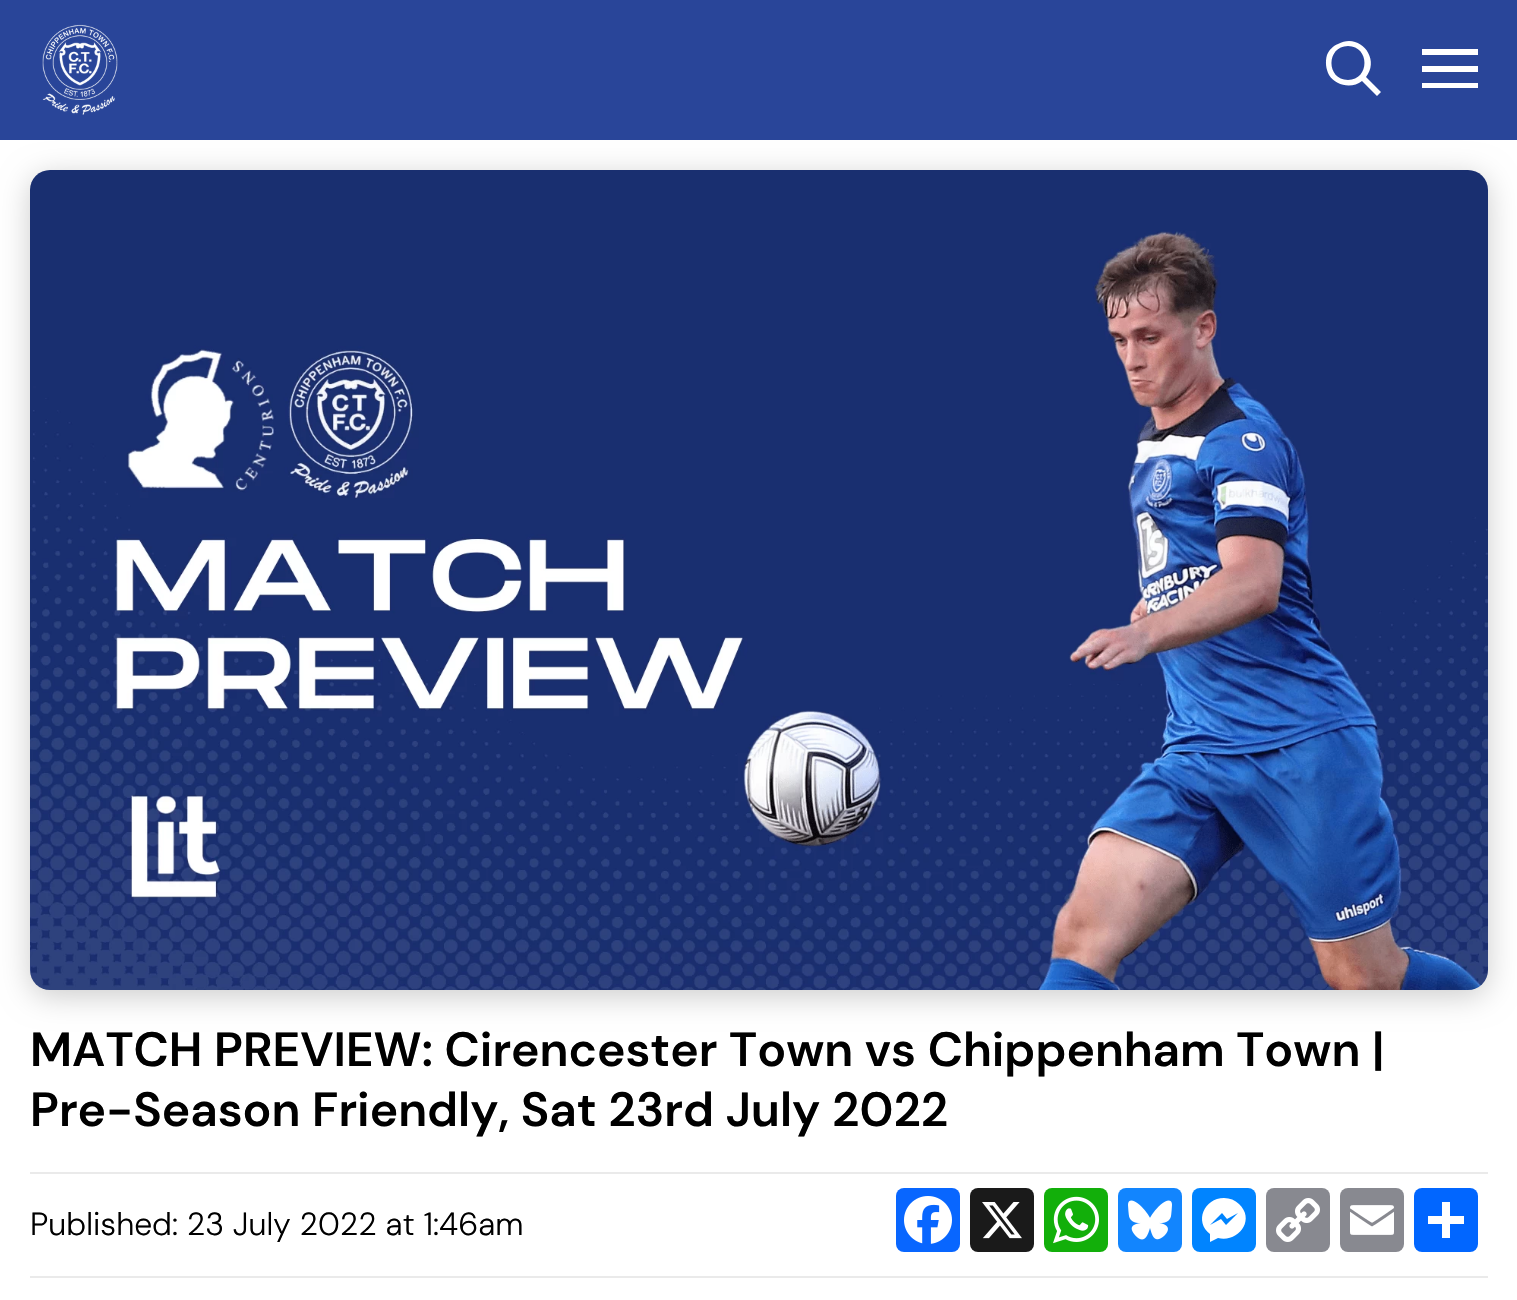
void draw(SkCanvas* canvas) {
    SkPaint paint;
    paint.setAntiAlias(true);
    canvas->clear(0xFFFFFFFF);
    paint.setColor(0x33000000);
    paint.setMaskFilter(SkMaskFilter::MakeBlur(kNormal_SkBlurStyle, 15));
    canvas->drawRoundRect(SkRect::MakeXYWH(30, 176, 1458, 820), 20, 20, paint);
    paint.setMaskFilter(nullptr);
    paint.setColor(0xFF294599);
    canvas->drawRect(SkRect::MakeXYWH(0, 0, 1517, 140), paint);
    canvas->drawImageRect(SkImages::DeferredFromEncodedData(SkData::MakeFromFileName("img1.png")), SkRect::MakeXYWH(42, 24, 76, 91), SkSamplingOptions());
    paint.setColor(0xFFFFFFFF);
    canvas->drawPath(SkPathBuilder().moveTo(1362, 81).cubicTo(1352, 89, 1336, 86, 1329, 75).cubicTo(1326, 69, 1325, 62, 1327, 55).cubicTo(1329, 50, 1333, 46, 1338, 44).cubicTo(1359, 32, 1381, 58, 1366, 77).lineTo(1381, 92).lineTo(1377, 96).close().moveTo(1348, 80).cubicTo(1370, 80, 1370, 46, 1348, 46).cubicTo(1326, 46, 1326, 80, 1348, 80).close().detach(), paint);
    canvas->drawPath(SkPathBuilder().moveTo(1422, 49).lineTo(1478, 49).lineTo(1478, 55).lineTo(1422, 55).close().moveTo(1422, 66).lineTo(1478, 66).lineTo(1478, 72).lineTo(1422, 72).close().moveTo(1422, 83).lineTo(1478, 83).lineTo(1478, 88).lineTo(1422, 88).close().detach(), paint);
    canvas->drawImageRect(SkImages::DeferredFromEncodedData(SkData::MakeFromFileName("img2.png")), SkRect::MakeXYWH(30, 170, 1458, 820), SkSamplingOptions());
    SkFont font1(fontMgr->matchFamilyStyle("DM Sans", SkFontStyle(600, SkFontStyle::kNormal_Width, SkFontStyle::kUpright_Slant)), 48);
    font1.setSubpixel(true);
    paint.setColor(0xFF000000);
    canvas->drawString("MATCH PREVIEW: Cirencester Town vs Chippenham Town |", 30, 1066, font1, paint);
    canvas->drawString("Pre-Season Friendly, Sat 23rd July 2022", 30, 1126, font1, paint);
    paint.setColor(0xFFEAEAEA);
    canvas->drawRect(SkRect::MakeXYWH(30, 1172, 1458, 2), paint);
    canvas->drawRect(SkRect::MakeXYWH(30, 1276, 1458, 2), paint);
    SkFont font2(fontMgr->matchFamilyStyle("DM Sans", SkFontStyle(300, SkFontStyle::kNormal_Width, SkFontStyle::kUpright_Slant)), 32);
    font2.setSubpixel(true);
    paint.setColor(0xFF000000);
    canvas->drawString("Published: 23 July 2022 at 1:46am", 30, 1235, font2, paint);
    paint.setColor(0xFF0866FF);
    canvas->drawRoundRect(SkRect::MakeXYWH(896, 1188, 64, 64), 8, 8, paint);
    canvas->drawImageRect(SkImages::DeferredFromEncodedData(SkData::MakeFromFileName("img3.png")), SkRect::MakeXYWH(904, 1196, 48, 48), SkSamplingOptions());
    paint.setColor(0xFF1A1A1A);
    canvas->drawRoundRect(SkRect::MakeXYWH(970, 1188, 64, 64), 8, 8, paint);
    canvas->drawImageRect(SkImages::DeferredFromEncodedData(SkData::MakeFromFileName("img4.png")), SkRect::MakeXYWH(982, 1202, 40, 37), SkSamplingOptions());
    paint.setColor(0xFF12AF0A);
    canvas->drawRoundRect(SkRect::MakeXYWH(1044, 1188, 64, 64), 8, 8, paint);
    canvas->drawImageRect(SkImages::DeferredFromEncodedData(SkData::MakeFromFileName("img5.png")), SkRect::MakeXYWH(1053, 1196, 46, 48), SkSamplingOptions());
    paint.setColor(0xFF1285FE);
    canvas->drawRoundRect(SkRect::MakeXYWH(1118, 1188, 64, 64), 8, 8, paint);
    canvas->drawImageRect(SkImages::DeferredFromEncodedData(SkData::MakeFromFileName("img6.png")), SkRect::MakeXYWH(1128, 1200, 44, 40), SkSamplingOptions());
    paint.setColor(0xFF0084FF);
    canvas->drawRoundRect(SkRect::MakeXYWH(1192, 1188, 64, 64), 8, 8, paint);
    paint.setColor(0xFFFFFFFF);
    canvas->drawPath(SkPathBuilder().moveTo(1224, 1198).cubicTo(1204, 1198, 1194, 1222, 1210, 1234).lineTo(1210, 1242).lineTo(1218, 1238).cubicTo(1238, 1243, 1256, 1220, 1239, 1204).cubicTo(1235, 1200, 1230, 1198, 1224, 1198).moveTo(1226, 1225).lineTo(1221, 1219).lineTo(1210, 1225).lineTo(1222, 1213).lineTo(1227, 1219).lineTo(1238, 1213).close().detach(), paint);
    paint.setColor(0xFF888990);
    canvas->drawRoundRect(SkRect::MakeXYWH(1266, 1188, 64, 64), 8, 8, paint);
    canvas->drawImageRect(SkImages::DeferredFromEncodedData(SkData::MakeFromFileName("img7.png")), SkRect::MakeXYWH(1276, 1198, 44, 44), SkSamplingOptions());
    canvas->drawRoundRect(SkRect::MakeXYWH(1340, 1188, 64, 64), 8, 8, paint);
    canvas->drawImageRect(SkImages::DeferredFromEncodedData(SkData::MakeFromFileName("img8.png")), SkRect::MakeXYWH(1350, 1205, 44, 30), SkSamplingOptions());
    paint.setColor(0xFF0166FF);
    canvas->drawRoundRect(SkRect::MakeXYWH(1414, 1188, 64, 64), 8, 8, paint);
    paint.setColor(0xFFFFFFFF);
    canvas->drawRect(SkRect::MakeXYWH(1442, 1202, 8, 36), paint);
    canvas->drawRect(SkRect::MakeXYWH(1428, 1216, 36, 8), paint);
}
